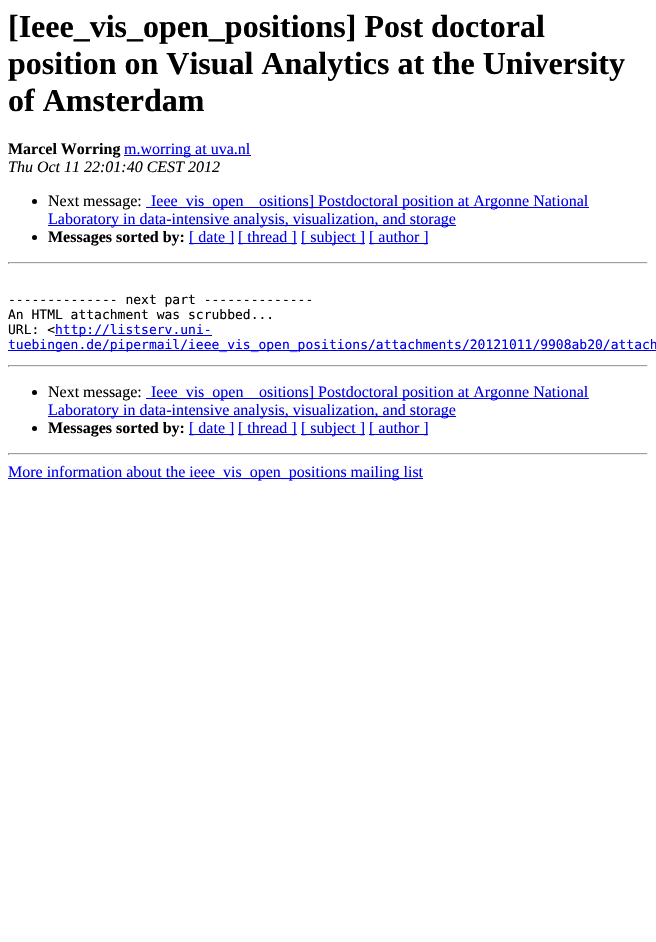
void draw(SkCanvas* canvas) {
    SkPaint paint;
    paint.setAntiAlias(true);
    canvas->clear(0xFFFFFFFF);
    SkFont font1(fontMgr->matchFamilyStyle("Liberation Serif", SkFontStyle::Bold()), 32);
    font1.setSubpixel(true);
    paint.setColor(0xFF000000);
    canvas->drawString("[Ieee_vis_open_positions] Post doctoral", 8, 37, font1, paint);
    canvas->drawString("position on Visual Analytics at the University", 8, 74, font1, paint);
    canvas->drawString("of Amsterdam", 8, 111, font1, paint);
    SkFont font2(fontMgr->matchFamilyStyle("Liberation Serif", SkFontStyle::Bold()), 16);
    font2.setSubpixel(true);
    canvas->drawString("Marcel Worring", 8, 154, font2, paint);
    paint.setColor(0xFF0000EE);
    canvas->drawRect(SkRect::MakeXYWH(124, 155, 127, 1), paint);
    SkFont font3(fontMgr->matchFamilyStyle("Liberation Serif", SkFontStyle::Normal()), 16);
    font3.setSubpixel(true);
    canvas->drawString("m.worring at uva.nl", 124, 154, font3, paint);
    SkFont font4(fontMgr->matchFamilyStyle("Liberation Serif", SkFontStyle::Italic()), 16);
    font4.setSubpixel(true);
    paint.setColor(0xFF000000);
    canvas->drawString("Thu Oct 11 22:01:40 CEST 2012", 8, 172, font4, paint);
    canvas->drawCircle(34.5f, 201.5f, 2.5f, paint);
    canvas->drawString("Next message:", 48, 206, font3, paint);
    paint.setColor(0xFF0000EE);
    canvas->drawRect(SkRect::MakeXYWH(146, 207, 443, 1), paint);
    canvas->drawString("Ieee_vis_open", 151, 206, font3, paint);
    canvas->drawString("ositions] Postdoctoral position at Argonne National", 259, 206, font3, paint);
    canvas->drawRect(SkRect::MakeXYWH(48, 225, 408, 1), paint);
    canvas->drawString("Laboratory in data-intensive analysis, visualization, and storage", 48, 224, font3, paint);
    paint.setColor(0xFF000000);
    canvas->drawCircle(34.5f, 237.5f, 2.5f, paint);
    canvas->drawString("Messages sorted by:", 48, 242, font2, paint);
    paint.setColor(0xFF0000EE);
    canvas->drawRect(SkRect::MakeXYWH(189, 243, 45, 1), paint);
    canvas->drawString("[ date ]", 189, 242, font3, paint);
    canvas->drawRect(SkRect::MakeXYWH(238, 243, 59, 1), paint);
    canvas->drawString("[ thread ]", 238, 242, font3, paint);
    canvas->drawRect(SkRect::MakeXYWH(301, 243, 64, 1), paint);
    canvas->drawString("[ subject ]", 301, 242, font3, paint);
    canvas->drawRect(SkRect::MakeXYWH(369, 243, 59, 1), paint);
    canvas->drawString("[ author ]", 369, 242, font3, paint);
    paint.setColor(0xFF9F9F9F);
    canvas->drawRect(SkRect::MakeXYWH(8, 262, 640, 1), paint);
    paint.setColor(0xFFEEEEEE);
    canvas->drawRect(SkRect::MakeXYWH(647, 262, 1, 2), paint);
    canvas->drawRect(SkRect::MakeXYWH(8, 263, 640, 1), paint);
    paint.setColor(0xFF9F9F9F);
    canvas->drawRect(SkRect::MakeXYWH(8, 262, 1, 2), paint);
    SkFont font5(fontMgr->matchFamilyStyle("DejaVu Sans Mono", SkFontStyle::Normal()), 13);
    font5.setSubpixel(true);
    paint.setColor(0xFF000000);
    canvas->drawString("-------------- next part --------------", 8, 304, font5, paint);
    canvas->drawString("An HTML attachment was scrubbed...", 8, 319, font5, paint);
    canvas->drawString("URL: <", 8, 334, font5, paint);
    paint.setColor(0xFF0000EE);
    canvas->drawRect(SkRect::MakeXYWH(55, 335, 157, 1), paint);
    canvas->drawString("http://listserv.uni-", 55, 334, font5, paint);
    canvas->drawRect(SkRect::MakeXYWH(8, 350, 648, 1), paint);
    canvas->drawString("tuebingen.de/pipermail/ieee_vis_open_positions/attachments/20121011/9908ab20/attach", 8, 349, font5, paint);
    paint.setColor(0xFF9F9F9F);
    canvas->drawRect(SkRect::MakeXYWH(8, 365, 640, 1), paint);
    paint.setColor(0xFFEEEEEE);
    canvas->drawRect(SkRect::MakeXYWH(647, 365, 1, 2), paint);
    canvas->drawRect(SkRect::MakeXYWH(8, 366, 640, 1), paint);
    paint.setColor(0xFF9F9F9F);
    canvas->drawRect(SkRect::MakeXYWH(8, 365, 1, 2), paint);
    paint.setColor(0xFF000000);
    canvas->drawCircle(34.5f, 392.5f, 2.5f, paint);
    canvas->drawString("Next message:", 48, 397, font3, paint);
    paint.setColor(0xFF0000EE);
    canvas->drawRect(SkRect::MakeXYWH(146, 398, 443, 1), paint);
    canvas->drawString("Ieee_vis_open", 151, 397, font3, paint);
    canvas->drawString("ositions] Postdoctoral position at Argonne National", 259, 397, font3, paint);
    canvas->drawRect(SkRect::MakeXYWH(48, 416, 408, 1), paint);
    canvas->drawString("Laboratory in data-intensive analysis, visualization, and storage", 48, 415, font3, paint);
    paint.setColor(0xFF000000);
    canvas->drawCircle(34.5f, 428.5f, 2.5f, paint);
    canvas->drawString("Messages sorted by:", 48, 433, font2, paint);
    paint.setColor(0xFF0000EE);
    canvas->drawRect(SkRect::MakeXYWH(189, 434, 45, 1), paint);
    canvas->drawString("[ date ]", 189, 433, font3, paint);
    canvas->drawRect(SkRect::MakeXYWH(238, 434, 59, 1), paint);
    canvas->drawString("[ thread ]", 238, 433, font3, paint);
    canvas->drawRect(SkRect::MakeXYWH(301, 434, 64, 1), paint);
    canvas->drawString("[ subject ]", 301, 433, font3, paint);
    canvas->drawRect(SkRect::MakeXYWH(369, 434, 59, 1), paint);
    canvas->drawString("[ author ]", 369, 433, font3, paint);
    paint.setColor(0xFF9F9F9F);
    canvas->drawRect(SkRect::MakeXYWH(8, 453, 640, 1), paint);
    paint.setColor(0xFFEEEEEE);
    canvas->drawRect(SkRect::MakeXYWH(647, 453, 1, 2), paint);
    canvas->drawRect(SkRect::MakeXYWH(8, 454, 640, 1), paint);
    paint.setColor(0xFF9F9F9F);
    canvas->drawRect(SkRect::MakeXYWH(8, 453, 1, 2), paint);
    paint.setColor(0xFF0000EE);
    canvas->drawRect(SkRect::MakeXYWH(8, 478, 415, 1), paint);
    canvas->drawString("More information about the ieee_vis_open_positions mailing list", 8, 477, font3, paint);
}
